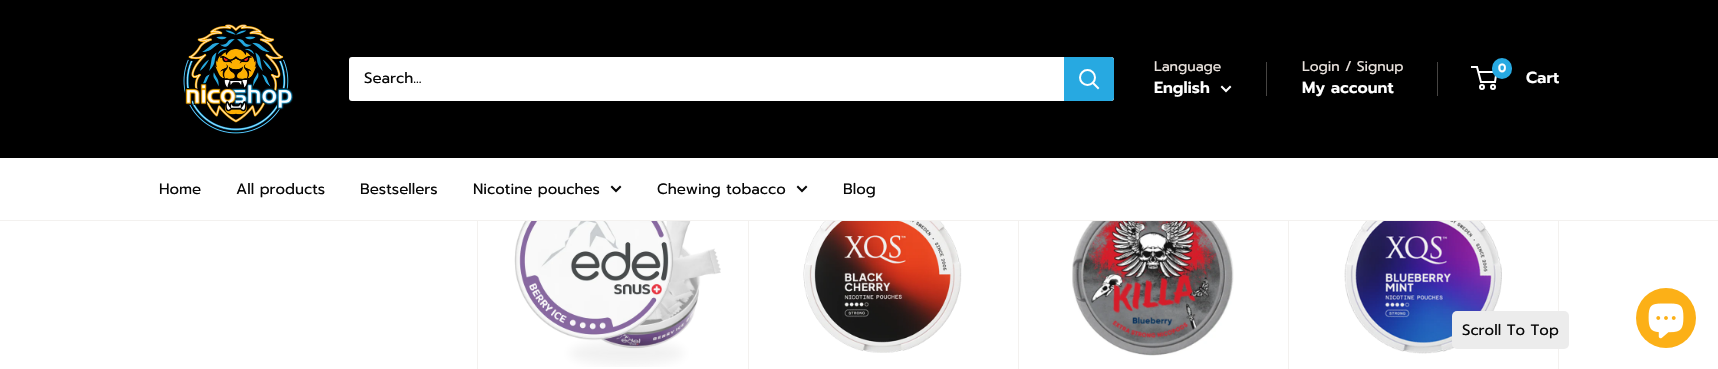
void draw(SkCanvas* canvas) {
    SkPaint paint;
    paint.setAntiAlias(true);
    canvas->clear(0xFFFFFFFF);
    paint.setStyle(SkPaint::kStroke_Style);
    paint.setStrokeWidth(1);
    paint.setColor(0xFFF3F1EF);
    canvas->drawRect(SkRect::MakeXYWH(477.5f, -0.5f, 1081, 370), paint);
    paint.setStyle(SkPaint::kFill_Style);
    paint.setColor(0xFF000000);
    canvas->drawRect(SkRect::MakeXYWH(0, 0, 1718, 158), paint);
    canvas->drawImageRect(SkImages::DeferredFromEncodedData(SkData::MakeFromFileName("img1.png")), SkRect::MakeXYWH(183, 24, 111, 110), SkSamplingOptions());
    paint.setColor(0xFFFFFFFF);
    canvas->drawRoundRect(SkRect::MakeXYWH(349, 57, 765, 44), 3, 3, paint);
    SkFont font1(fontMgr->matchFamilyStyle("Prompt", SkFontStyle::Normal()), 15);
    font1.setSubpixel(true);
    paint.setColor(0xFF090909);
    canvas->drawString("Search...", 364, 83, font1, paint);
    paint.setColor(0xFF27A9E1);
    canvas->drawPath(SkPathBuilder().moveTo(1064, 57).lineTo(1111, 57).cubicTo(1112.5f, 57, 1114, 58.5f, 1114, 60).lineTo(1114, 98).cubicTo(1114, 99.5f, 1112.5f, 101, 1111, 101).lineTo(1064, 101).close().detach(), paint);
    paint.setStyle(SkPaint::kStroke_Style);
    paint.setStrokeWidth(2);
    paint.setStrokeCap(SkPaint::kSquare_Cap);
    paint.setColor(0xFFFFFFFF);
    canvas->drawPath(SkPathBuilder().moveTo(1098, 88).lineTo(1093, 83).detach(), paint);
    paint.setStrokeCap(SkPaint::kButt_Cap);
    canvas->drawCircle(1087.5f, 77.5f, 7.5f, paint);
    SkFont font2(fontMgr->matchFamilyStyle("Prompt", SkFontStyle::Normal()), 14);
    font2.setSubpixel(true);
    paint.setStyle(SkPaint::kFill_Style);
    paint.setColor(0xFFE9E2DD);
    canvas->drawString("Language", 1154, 71, font2, paint);
    SkFont font3(fontMgr->matchFamilyStyle("Prompt", SkFontStyle(600, SkFontStyle::kNormal_Width, SkFontStyle::kUpright_Slant)), 16);
    font3.setSubpixel(true);
    paint.setColor(0xFFFFFFFF);
    canvas->drawString("English", 1154, 93, font3, paint);
    paint.setStyle(SkPaint::kStroke_Style);
    paint.setStrokeCap(SkPaint::kSquare_Cap);
    canvas->drawPath(SkPathBuilder().moveTo(1230, 87).lineTo(1226, 91).lineTo(1222, 87).detach(), paint);
    paint.setStyle(SkPaint::kFill_Style);
    paint.setColor(0xFF464442);
    canvas->drawRect(SkRect::MakeXYWH(1266, 62, 1, 34), paint);
    paint.setColor(0xFFE9E2DD);
    canvas->drawString("Login / Signup", 1302, 71, font2, paint);
    paint.setColor(0xFF464442);
    canvas->drawRect(SkRect::MakeXYWH(1437, 62, 1, 34), paint);
    paint.setColor(0xFFFFFFFF);
    canvas->drawString("My account", 1302, 93, font3, paint);
    paint.setStyle(SkPaint::kStroke_Style);
    paint.setStrokeCap(SkPaint::kButt_Cap);
    canvas->drawCircle(1482, 87, 2, paint);
    canvas->drawCircle(1493, 87, 2, paint);
    canvas->drawPath(SkPathBuilder().moveTo(1478.5f, 72).lineTo(1496.5f, 72).lineTo(1495, 82).lineTo(1481, 82).lineTo(1477, 67).lineTo(1471, 67).detach(), paint);
    paint.setStyle(SkPaint::kFill_Style);
    paint.setColor(0xFF27A9E1);
    canvas->drawRoundRect(SkRect::MakeXYWH(1492, 58, 20, 21), 10, 10, paint);
    SkFont font4(fontMgr->matchFamilyStyle("Prompt", SkFontStyle(600, SkFontStyle::kNormal_Width, SkFontStyle::kUpright_Slant)), 12);
    font4.setSubpixel(true);
    paint.setColor(0xFFFFFFFF);
    canvas->drawString("0", 1498, 72, font4, paint);
    canvas->drawString("Cart", 1526, 83, font3, paint);
    canvas->drawRect(SkRect::MakeXYWH(477, 158, 1082, 62), paint);
    paint.setColor(0xFFF3F1EF);
    canvas->drawRect(SkRect::MakeXYWH(0, 220, 1718, 1), paint);
    paint.setColor(0xFF090909);
    canvas->drawString("Home", 159, 194, font1, paint);
    canvas->drawString("All products", 236, 194, font1, paint);
    canvas->drawString("Bestsellers", 360, 194, font1, paint);
    canvas->drawString("Nicotine pouches", 473, 194, font1, paint);
    paint.setStyle(SkPaint::kStroke_Style);
    paint.setStrokeCap(SkPaint::kSquare_Cap);
    canvas->drawPath(SkPathBuilder().moveTo(620, 187).lineTo(616, 191).lineTo(612, 187).detach(), paint);
    paint.setStyle(SkPaint::kFill_Style);
    canvas->drawString("Chewing tobacco", 657, 194, font1, paint);
    paint.setStyle(SkPaint::kStroke_Style);
    canvas->drawPath(SkPathBuilder().moveTo(806, 187).lineTo(802, 191).lineTo(798, 187).detach(), paint);
    paint.setStyle(SkPaint::kFill_Style);
    canvas->drawString("Blog", 843, 194, font1, paint);
    canvas->drawImageRect(SkImages::DeferredFromEncodedData(SkData::MakeFromFileName("img2.png")), SkRect::MakeXYWH(514, 221, 207, 146), SkSamplingOptions());
    paint.setColor(0xFFF3F1EF);
    canvas->drawRect(SkRect::MakeXYWH(748, 221, 1, 148), paint);
    canvas->drawImageRect(SkImages::DeferredFromEncodedData(SkData::MakeFromFileName("img3.png")), SkRect::MakeXYWH(803, 221, 159, 132), SkSamplingOptions());
    canvas->drawRect(SkRect::MakeXYWH(1018, 221, 1, 148), paint);
    canvas->drawImageRect(SkImages::DeferredFromEncodedData(SkData::MakeFromFileName("img4.png")), SkRect::MakeXYWH(1072, 221, 162, 135), SkSamplingOptions());
    canvas->drawRect(SkRect::MakeXYWH(1288, 221, 1, 148), paint);
    canvas->drawImageRect(SkImages::DeferredFromEncodedData(SkData::MakeFromFileName("img5.png")), SkRect::MakeXYWH(1344, 221, 158, 133), SkSamplingOptions());
    paint.setColor(0xFFECECEC);
    canvas->drawRoundRect(SkRect::MakeXYWH(1452, 311, 117, 38), 5, 5, paint);
    paint.setColor(0xFF090909);
    canvas->drawString("Scroll To Top", 1462, 335, font1, paint);
    paint.setColor(0xFFFCB017);
    canvas->drawCircle(1666, 318, 30, paint);
    canvas->drawImageRect(SkImages::DeferredFromEncodedData(SkData::MakeFromFileName("img6.png")), SkRect::MakeXYWH(1648, 303, 36, 36), SkSamplingOptions());
}
